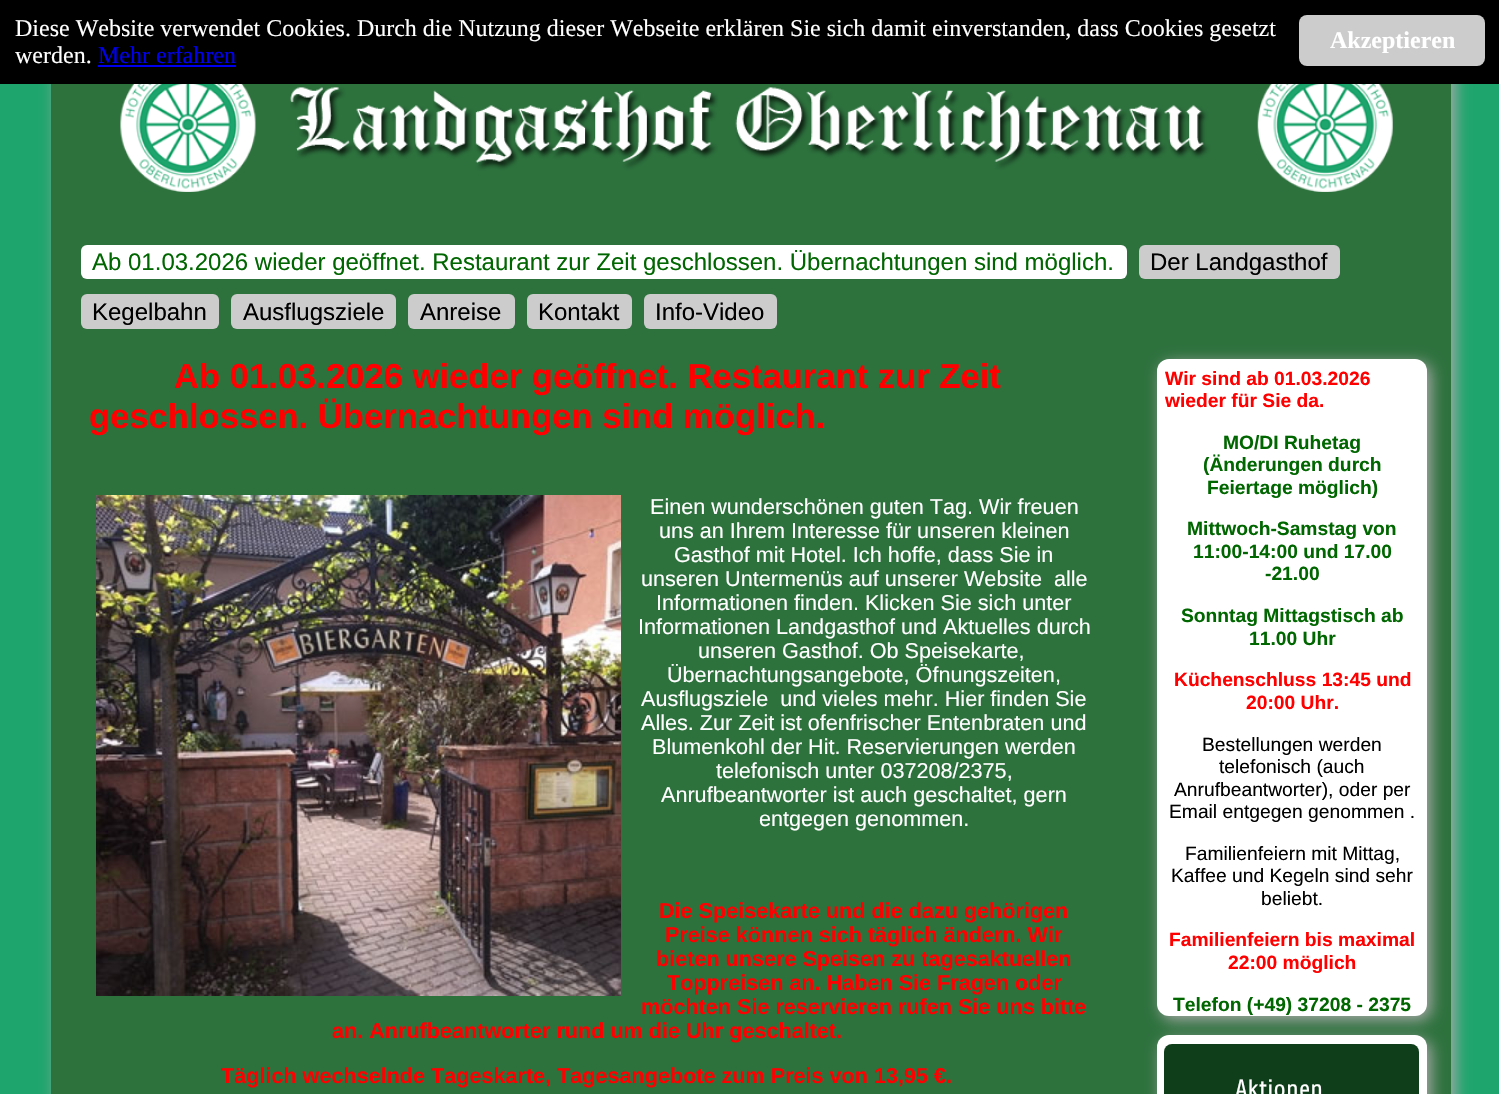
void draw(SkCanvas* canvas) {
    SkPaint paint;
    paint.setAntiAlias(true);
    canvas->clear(0xFF1EA56D);
    paint.setColor(0xFFAAAAAA);
    paint.setMaskFilter(SkMaskFilter::MakeBlur(kNormal_SkBlurStyle, 7.5f));
    canvas->drawRoundRect(SkRect::MakeXYWH(56, 20, 1399, 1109), 12, 12, paint);
    paint.setMaskFilter(nullptr);
    paint.setColor(0xFF000000);
    canvas->drawRect(SkRect::MakeXYWH(0, 0, 1499, 84), paint);
    SkFont font1(fontMgr->matchFamilyStyle("Liberation Serif", SkFontStyle::Normal()), 24);
    font1.setSubpixel(true);
    paint.setColor(0xFFFFFFFF);
    canvas->drawString("Diese Website verwendet Cookies. Durch die Nutzung dieser Webseite erklären Sie sich damit einverstanden, dass Cookies gesetzt", 15, 36, font1, paint);
    canvas->drawString("werden.", 15, 63, font1, paint);
    paint.setColor(0xFF0000EE);
    canvas->drawString("Mehr erfahren", 98, 63, font1, paint);
    canvas->drawRect(SkRect::MakeXYWH(98, 65, 138, 2), paint);
    paint.setColor(0xFFCCCCCC);
    canvas->drawRoundRect(SkRect::MakeXYWH(1299, 15, 186, 51), 8, 8, paint);
    SkFont font2(fontMgr->matchFamilyStyle("Liberation Serif", SkFontStyle::Bold()), 24);
    font2.setSubpixel(true);
    paint.setColor(0xFFFFFFFF);
    canvas->drawString("Akzeptieren", 1330, 48, font2, paint);
    paint.setColor(0xFF2D713D);
    canvas->drawRect(SkRect::MakeXYWH(51, 84, 1400, 1010), paint);
    canvas->drawImageRect(SkImages::DeferredFromEncodedData(SkData::MakeFromFileName("img1.png")), SkRect::MakeXYWH(120, 84, 1273, 108), SkSamplingOptions());
    paint.setColor(0xFFFFFFFF);
    canvas->drawRoundRect(SkRect::MakeXYWH(81, 245, 1046, 34), 6, 6, paint);
    SkFont font3(fontMgr->matchFamilyStyle("Liberation Sans", SkFontStyle::Normal()), 24);
    font3.setSubpixel(true);
    paint.setColor(0xFF006600);
    canvas->drawString("Ab 01.03.2026 wieder geöffnet. Restaurant zur Zeit geschlossen. Übernachtungen sind möglich.", 92, 270, font3, paint);
    paint.setColor(0xFFCCCCCC);
    canvas->drawRoundRect(SkRect::MakeXYWH(1139, 245, 201, 34), 6, 6, paint);
    paint.setColor(0xFF000000);
    canvas->drawString("Der Landgasthof", 1150, 270, font3, paint);
    paint.setColor(0xFFCCCCCC);
    canvas->drawRoundRect(SkRect::MakeXYWH(81, 294, 138, 35), 6, 6, paint);
    paint.setColor(0xFF000000);
    canvas->drawString("Kegelbahn", 92, 320, font3, paint);
    paint.setColor(0xFFCCCCCC);
    canvas->drawRoundRect(SkRect::MakeXYWH(231, 294, 165, 35), 6, 6, paint);
    paint.setColor(0xFF000000);
    canvas->drawString("Ausflugsziele", 243, 320, font3, paint);
    paint.setColor(0xFFCCCCCC);
    canvas->drawRoundRect(SkRect::MakeXYWH(408, 294, 107, 35), 6, 6, paint);
    paint.setColor(0xFF000000);
    canvas->drawString("Anreise", 420, 320, font3, paint);
    paint.setColor(0xFFCCCCCC);
    canvas->drawRoundRect(SkRect::MakeXYWH(527, 294, 105, 35), 6, 6, paint);
    paint.setColor(0xFF000000);
    canvas->drawString("Kontakt", 538, 320, font3, paint);
    paint.setColor(0xFFCCCCCC);
    canvas->drawRoundRect(SkRect::MakeXYWH(644, 294, 133, 35), 6, 6, paint);
    paint.setColor(0xFF000000);
    canvas->drawString("Info-Video", 655, 320, font3, paint);
    SkFont font4(fontMgr->matchFamilyStyle("Liberation Sans", SkFontStyle::Bold()), 34.6f);
    font4.setSubpixel(true);
    paint.setColor(0xFFFF0000);
    canvas->drawString("Ab 01.03.2026 wieder geöffnet. Restaurant zur Zeit", 174, 388, font4, paint);
    canvas->drawString("geschlossen. Übernachtungen sind möglich.", 89, 428, font4, paint);
    canvas->drawImageRect(SkImages::DeferredFromEncodedData(SkData::MakeFromFileName("img2.png")), SkRect::MakeXYWH(96, 495, 525, 501), SkSamplingOptions());
    SkFont font5(fontMgr->matchFamilyStyle("Liberation Sans", SkFontStyle::Normal()), 21.6f);
    font5.setSubpixel(true);
    paint.setColor(0xFFFFFFFF);
    canvas->drawString("Einen wunderschönen guten Tag. Wir freuen", 650, 514, font5, paint);
    canvas->drawString("uns an Ihrem Interesse für unseren kleinen", 659, 538, font5, paint);
    canvas->drawString("Gasthof mit Hotel. Ich hoffe, dass Sie in", 674, 562, font5, paint);
    canvas->drawString("unseren Untermenüs auf unserer Website  alle", 641, 586, font5, paint);
    canvas->drawString("Informationen finden. Klicken Sie sich unter", 656, 610, font5, paint);
    canvas->drawString("Informationen Landgasthof und Aktuelles durch", 638, 634, font5, paint);
    canvas->drawString("unseren Gasthof. Ob Speisekarte,", 698, 658, font5, paint);
    canvas->drawString("Übernachtungsangebote, Öfnungszeiten,", 667, 682, font5, paint);
    canvas->drawString("Ausflugsziele  und vieles mehr. Hier finden Sie", 641, 706, font5, paint);
    canvas->drawString("Alles. Zur Zeit ist ofenfrischer Entenbraten und", 641, 730, font5, paint);
    canvas->drawString("Blumenkohl der Hit. Reservierungen werden", 652, 754, font5, paint);
    canvas->drawString("telefonisch unter 037208/2375,", 716, 778, font5, paint);
    canvas->drawString("Anrufbeantworter ist auch geschaltet, gern", 661, 802, font5, paint);
    canvas->drawString("entgegen genommen.", 759, 826, font5, paint);
    SkFont font6(fontMgr->matchFamilyStyle("Liberation Sans", SkFontStyle::Bold()), 21.6f);
    font6.setSubpixel(true);
    paint.setColor(0xFFFF0000);
    canvas->drawString("Die Speisekarte und die dazu gehörigen", 659, 918, font6, paint);
    canvas->drawString("Preise können sich täglich ändern. Wir", 665, 942, font6, paint);
    canvas->drawString("bieten unsere Speisen zu tagesaktuellen", 656, 966, font6, paint);
    canvas->drawString("Toppreisen an. Haben Sie Fragen oder", 667, 990, font6, paint);
    canvas->drawString("möchten Sie reservieren rufen Sie uns bitte", 641, 1014, font6, paint);
    canvas->drawString("an. Anrufbeantworter rund um die Uhr geschaltet.", 332, 1038, font6, paint);
    canvas->drawString("Täglich wechselnde Tageskarte, Tagesangebote zum Preis von 13,95 €.", 221, 1083, font6, paint);
    paint.setColor(0xFFAAAAAA);
    paint.setMaskFilter(SkMaskFilter::MakeBlur(kNormal_SkBlurStyle, 7.5f));
    canvas->drawRoundRect(SkRect::MakeXYWH(1161, 363, 270, 657), 12, 12, paint);
    paint.setMaskFilter(nullptr);
    paint.setColor(0xFFFFFFFF);
    canvas->drawRoundRect(SkRect::MakeXYWH(1157, 359, 270, 657), 12, 12, paint);
    SkFont font7(fontMgr->matchFamilyStyle("Liberation Sans", SkFontStyle::Bold()), 19.25f);
    font7.setSubpixel(true);
    paint.setColor(0xFFFF0000);
    canvas->drawString("Wir sind ab 01.03.2026", 1165, 385, font7, paint);
    canvas->drawString("wieder für Sie da.", 1165, 407, font7, paint);
    paint.setColor(0xFF006600);
    canvas->drawString("MO/DI Ruhetag", 1223, 449, font7, paint);
    canvas->drawString("(Änderungen durch", 1203, 471, font7, paint);
    canvas->drawString("Feiertage möglich)", 1207, 494, font7, paint);
    canvas->drawString("Mittwoch-Samstag von", 1187, 535, font7, paint);
    canvas->drawString("11:00-14:00 und 17.00", 1193, 558, font7, paint);
    canvas->drawString("-21.00", 1265, 580, font7, paint);
    canvas->drawString("Sonntag Mittagstisch ab", 1181, 622, font7, paint);
    canvas->drawString("11.00 Uhr", 1249, 645, font7, paint);
    paint.setColor(0xFFFF0000);
    canvas->drawString("Küchenschluss 13:45 und", 1174, 686, font7, paint);
    canvas->drawString("20:00 Uhr.", 1246, 709, font7, paint);
    SkFont font8(fontMgr->matchFamilyStyle("Liberation Sans", SkFontStyle::Normal()), 19.25f);
    font8.setSubpixel(true);
    paint.setColor(0xFF000000);
    canvas->drawString("Bestellungen werden", 1202, 751, font8, paint);
    canvas->drawString("telefonisch (auch", 1219, 773, font8, paint);
    canvas->drawString("Anrufbeantworter), oder per", 1174, 796, font8, paint);
    canvas->drawString("Email entgegen genommen .", 1169, 818, font8, paint);
    canvas->drawString("Familienfeiern mit Mittag,", 1185, 860, font8, paint);
    canvas->drawString("Kaffee und Kegeln sind sehr", 1171, 882, font8, paint);
    canvas->drawString("beliebt.", 1261, 905, font8, paint);
    paint.setColor(0xFFFF0000);
    canvas->drawString("Familienfeiern bis maximal", 1169, 946, font7, paint);
    canvas->drawString("22:00 möglich", 1228, 969, font7, paint);
    paint.setColor(0xFF006600);
    canvas->drawString("Telefon (+49) 37208 - 2375", 1173, 1011, font7, paint);
    paint.setColor(0xFFAAAAAA);
    paint.setMaskFilter(SkMaskFilter::MakeBlur(kNormal_SkBlurStyle, 7.5f));
    canvas->drawRoundRect(SkRect::MakeXYWH(1161, 1040, 270, 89), 12, 12, paint);
    paint.setMaskFilter(nullptr);
    paint.setColor(0xFFFFFFFF);
    canvas->drawRoundRect(SkRect::MakeXYWH(1157, 1035, 270, 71), 12, 12, paint);
    paint.setColor(0xFF0F3E1A);
    canvas->drawRoundRect(SkRect::MakeXYWH(1164, 1044, 255, 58), 8, 8, paint);
    SkFont font9(fontMgr->matchFamilyStyle("Share", SkFontStyle::Normal()), 25);
    font9.setSubpixel(true);
    paint.setColor(0xFFFFFFFF);
    canvas->drawString("Aktionen", 1235, 1097, font9, paint);
}
